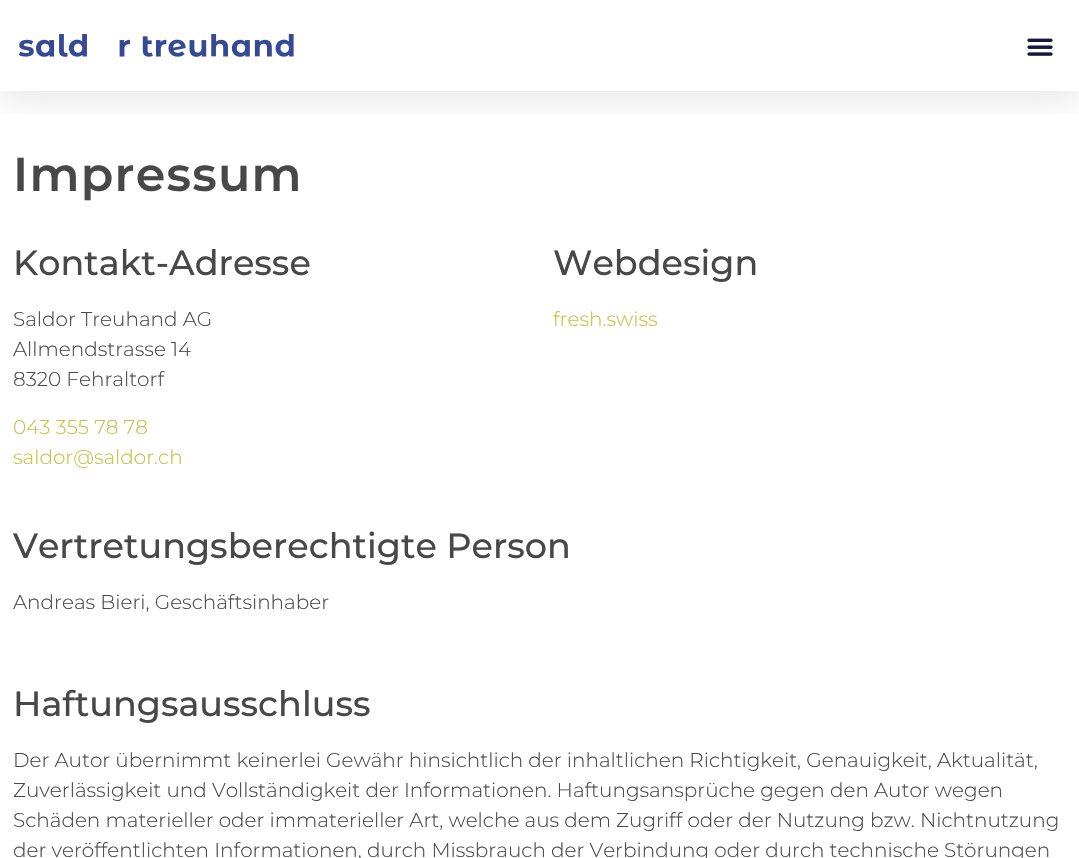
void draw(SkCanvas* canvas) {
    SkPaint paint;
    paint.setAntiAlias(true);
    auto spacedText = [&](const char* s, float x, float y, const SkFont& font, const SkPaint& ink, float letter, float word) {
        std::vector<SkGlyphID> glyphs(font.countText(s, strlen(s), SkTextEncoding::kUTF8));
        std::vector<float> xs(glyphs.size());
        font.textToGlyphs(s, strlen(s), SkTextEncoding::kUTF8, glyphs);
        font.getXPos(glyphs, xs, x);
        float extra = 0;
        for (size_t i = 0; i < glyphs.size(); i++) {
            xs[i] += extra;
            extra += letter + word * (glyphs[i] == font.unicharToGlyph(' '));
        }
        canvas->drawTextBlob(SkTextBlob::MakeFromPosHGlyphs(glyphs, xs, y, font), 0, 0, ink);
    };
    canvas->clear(0xFFFFFFFF);
    canvas->save();
    canvas->clipRect(SkRect::MakeXYWH(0, 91, 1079, 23));
    paint.setColor(0x1A000000);
    paint.setMaskFilter(SkMaskFilter::MakeBlur(kNormal_SkBlurStyle, 19));
    canvas->drawRect(SkRect::MakeXYWH(0, 6, 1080, 92), paint);
    paint.setMaskFilter(nullptr);
    canvas->restore();
    canvas->drawImageRect(SkImages::DeferredFromEncodedData(SkData::MakeFromFileName("img1.png")), SkRect::MakeXYWH(19, 34, 275, 23), SkSamplingOptions());
    canvas->drawImageRect(SkImages::DeferredFromEncodedData(SkData::MakeFromFileName("img2.png")), SkRect::MakeXYWH(1027, 38, 26, 18), SkSamplingOptions());
    SkFont font1(fontMgr->matchFamilyStyle("Montserrat", SkFontStyle(600, SkFontStyle::kNormal_Width, SkFontStyle::kUpright_Slant)), 47.5f);
    font1.setSubpixel(true);
    paint.setColor(0xFF484848);
    spacedText("Impressum", 13, 191, font1, paint, 1.25f, 0);
    SkFont font2(fontMgr->matchFamilyStyle("Montserrat", SkFontStyle(500, SkFontStyle::kNormal_Width, SkFontStyle::kUpright_Slant)), 35);
    font2.setSubpixel(true);
    canvas->drawString("Kontakt-Adresse", 13, 275, font2, paint);
    SkFont font3(fontMgr->matchFamilyStyle("Montserrat", SkFontStyle(300, SkFontStyle::kNormal_Width, SkFontStyle::kUpright_Slant)), 20);
    font3.setSubpixel(true);
    canvas->drawString("Saldor Treuhand AG", 13, 326, font3, paint);
    canvas->drawString("Allmendstrasse 14", 13, 356, font3, paint);
    canvas->drawString("8320 Fehraltorf", 13, 386, font3, paint);
    paint.setColor(0xFFC9BF44);
    canvas->drawString("043 355 78 78", 13, 434, font3, paint);
    canvas->drawString("saldor@saldor.ch", 13, 464, font3, paint);
    paint.setColor(0xFF484848);
    canvas->drawString("Webdesign", 553, 275, font2, paint);
    paint.setColor(0xFFC9BF44);
    canvas->drawString("fresh.swiss", 553, 326, font3, paint);
    paint.setColor(0xFF484848);
    canvas->drawString("Vertretungsberechtigte Person", 13, 558, font2, paint);
    canvas->drawString("Andreas Bieri, Geschäftsinhaber", 13, 609, font3, paint);
    canvas->drawString("Haftungsausschluss", 13, 716, font2, paint);
    canvas->drawString("Der Autor übernimmt keinerlei Gewähr hinsichtlich der inhaltlichen Richtigkeit, Genauigkeit, Aktualität,", 13, 767, font3, paint);
    canvas->drawString("Zuverlässigkeit und Vollständigkeit der Informationen. Haftungsansprüche gegen den Autor wegen", 13, 797, font3, paint);
    canvas->drawString("Schäden materieller oder immaterieller Art, welche aus dem Zugriff oder der Nutzung bzw. Nichtnutzung", 13, 827, font3, paint);
    canvas->drawString("der veröffentlichten Informationen, durch Missbrauch der Verbindung oder durch technische Störungen", 13, 857, font3, paint);
}
